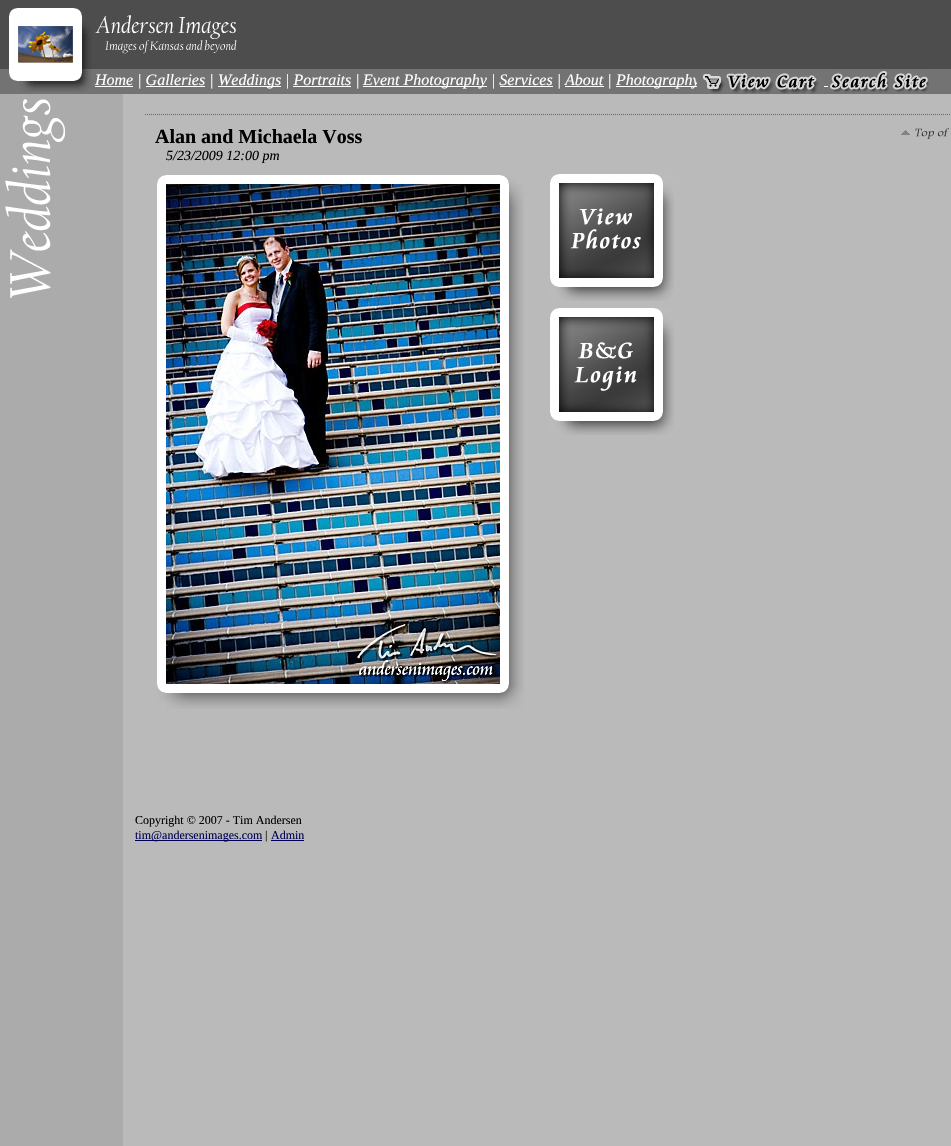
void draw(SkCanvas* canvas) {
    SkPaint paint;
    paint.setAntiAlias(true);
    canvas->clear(0xFFBABABA);
    paint.setColor(0xFFABABAB);
    canvas->drawRect(SkRect::MakeXYWH(0, 94, 123, 1052), paint);
    canvas->drawImageRect(SkImages::DeferredFromEncodedData(SkData::MakeFromFileName("img1.png")), SkRect::MakeXYWH(0, 0, 951, 94), SkSamplingOptions());
    canvas->drawImageRect(SkImages::DeferredFromEncodedData(SkData::MakeFromFileName("img2.png")), SkRect::MakeXYWH(9, 8, 228, 84), SkSamplingOptions());
    paint.setColor(0xFFFFFFFF);
    canvas->drawRect(SkRect::MakeXYWH(95, 86, 38, 1), paint);
    SkFont font1(fontMgr->matchFamilyStyle("Liberation Serif", SkFontStyle::Italic()), 16);
    font1.setSubpixel(true);
    canvas->drawString("Home | Galleries |", 95, 85, font1, paint);
    canvas->drawRect(SkRect::MakeXYWH(218, 86, 63, 1), paint);
    canvas->drawString("Weddings | Portraits |", 218, 85, font1, paint);
    canvas->drawRect(SkRect::MakeXYWH(363, 86, 124, 1), paint);
    canvas->drawString("Event Photography | Services | About |", 363, 85, font1, paint);
    canvas->drawRect(SkRect::MakeXYWH(616, 86, 81, 1), paint);
    canvas->drawString("Photography", 616, 85, font1, paint);
    canvas->drawRect(SkRect::MakeXYWH(146, 86, 59, 1), paint);
    canvas->drawRect(SkRect::MakeXYWH(293, 86, 58, 1), paint);
    canvas->drawRect(SkRect::MakeXYWH(500, 86, 53, 1), paint);
    canvas->drawRect(SkRect::MakeXYWH(565, 86, 39, 1), paint);
    canvas->drawRect(SkRect::MakeXYWH(824, 86, 4, 1), paint);
    canvas->drawImageRect(SkImages::DeferredFromEncodedData(SkData::MakeFromFileName("img3.png")), SkRect::MakeXYWH(697, 73, 127, 21), SkSamplingOptions());
    canvas->drawImageRect(SkImages::DeferredFromEncodedData(SkData::MakeFromFileName("img4.png")), SkRect::MakeXYWH(828, 71, 101, 21), SkSamplingOptions());
    canvas->drawImageRect(SkImages::DeferredFromEncodedData(SkData::MakeFromFileName("img5.png")), SkRect::MakeXYWH(5, 99, 60, 199), SkSamplingOptions());
    paint.setStyle(SkPaint::kStroke_Style);
    paint.setStrokeWidth(1);
    paint.setColor(0xFF666666);
    paint.setPathEffect(SkDashPathEffect::Make({{1, 1}}, 0));
    canvas->drawPath(SkPathBuilder().moveTo(145, 114.5f).lineTo(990, 114.5f).detach(), paint);
    paint.setPathEffect(nullptr);
    SkFont font2(fontMgr->matchFamilyStyle("Liberation Serif", SkFontStyle::Bold()), 20);
    font2.setSubpixel(true);
    paint.setStyle(SkPaint::kFill_Style);
    paint.setColor(0xFF000000);
    canvas->drawString("Alan and Michaela Voss", 155, 143, font2, paint);
    SkFont font3(fontMgr->matchFamilyStyle("Liberation Serif", SkFontStyle::Italic()), 14);
    font3.setSubpixel(true);
    canvas->drawString("5/23/2009 12:00 pm", 166, 160, font3, paint);
    canvas->drawImageRect(SkImages::DeferredFromEncodedData(SkData::MakeFromFileName("img6.png")), SkRect::MakeXYWH(901, 128, 48, 11), SkSamplingOptions());
    canvas->drawImageRect(SkImages::DeferredFromEncodedData(SkData::MakeFromFileName("img7.png")), SkRect::MakeXYWH(157, 175, 9, 9), SkSamplingOptions());
    paint.setColor(0xFFFFFFFF);
    canvas->drawRect(SkRect::MakeXYWH(166, 175, 334, 9), paint);
    canvas->drawImageRect(SkImages::DeferredFromEncodedData(SkData::MakeFromFileName("img8.png")), SkRect::MakeXYWH(500, 175, 16, 9), SkSamplingOptions());
    canvas->drawRect(SkRect::MakeXYWH(157, 184, 9, 500), paint);
    canvas->drawImageRect(SkImages::DeferredFromEncodedData(SkData::MakeFromFileName("img9.png")), SkRect::MakeXYWH(166, 184, 334, 500), SkSamplingOptions());
    canvas->drawImageRect(SkImages::DeferredFromEncodedData(SkData::MakeFromFileName("img10.png")), SkRect::MakeXYWH(500, 218, 24, 466), SkSamplingOptions());
    canvas->drawImageRect(SkImages::DeferredFromEncodedData(SkData::MakeFromFileName("img11.png")), SkRect::MakeXYWH(500, 184, 24, 34), SkSamplingOptions());
    canvas->drawImageRect(SkImages::DeferredFromEncodedData(SkData::MakeFromFileName("img12.png")), SkRect::MakeXYWH(157, 684, 9, 18), SkSamplingOptions());
    canvas->drawImageRect(SkImages::DeferredFromEncodedData(SkData::MakeFromFileName("img13.png")), SkRect::MakeXYWH(200, 684, 300, 25), SkSamplingOptions());
    canvas->drawImageRect(SkImages::DeferredFromEncodedData(SkData::MakeFromFileName("img14.png")), SkRect::MakeXYWH(166, 684, 34, 25), SkSamplingOptions());
    canvas->drawImageRect(SkImages::DeferredFromEncodedData(SkData::MakeFromFileName("img15.png")), SkRect::MakeXYWH(500, 684, 24, 25), SkSamplingOptions());
    canvas->drawImageRect(SkImages::DeferredFromEncodedData(SkData::MakeFromFileName("img16.png")), SkRect::MakeXYWH(550, 174, 124, 127), SkSamplingOptions());
    canvas->drawImageRect(SkImages::DeferredFromEncodedData(SkData::MakeFromFileName("img17.png")), SkRect::MakeXYWH(550, 308, 124, 127), SkSamplingOptions());
    SkFont font4(fontMgr->matchFamilyStyle("Liberation Serif", SkFontStyle::Normal()), 12);
    font4.setSubpixel(true);
    paint.setColor(0xFF000000);
    canvas->drawString("Copyright © 2007 - Tim Andersen", 135, 824, font4, paint);
    paint.setColor(0xFF000055);
    canvas->drawRect(SkRect::MakeXYWH(135, 840, 127, 1), paint);
    canvas->drawString("tim@andersenimages.com", 135, 839, font4, paint);
    paint.setColor(0xFF000000);
    canvas->drawString("|", 265, 839, font4, paint);
    paint.setColor(0xFF000055);
    canvas->drawString("Admin", 271, 839, font4, paint);
    canvas->drawRect(SkRect::MakeXYWH(271, 840, 33, 1), paint);
}
